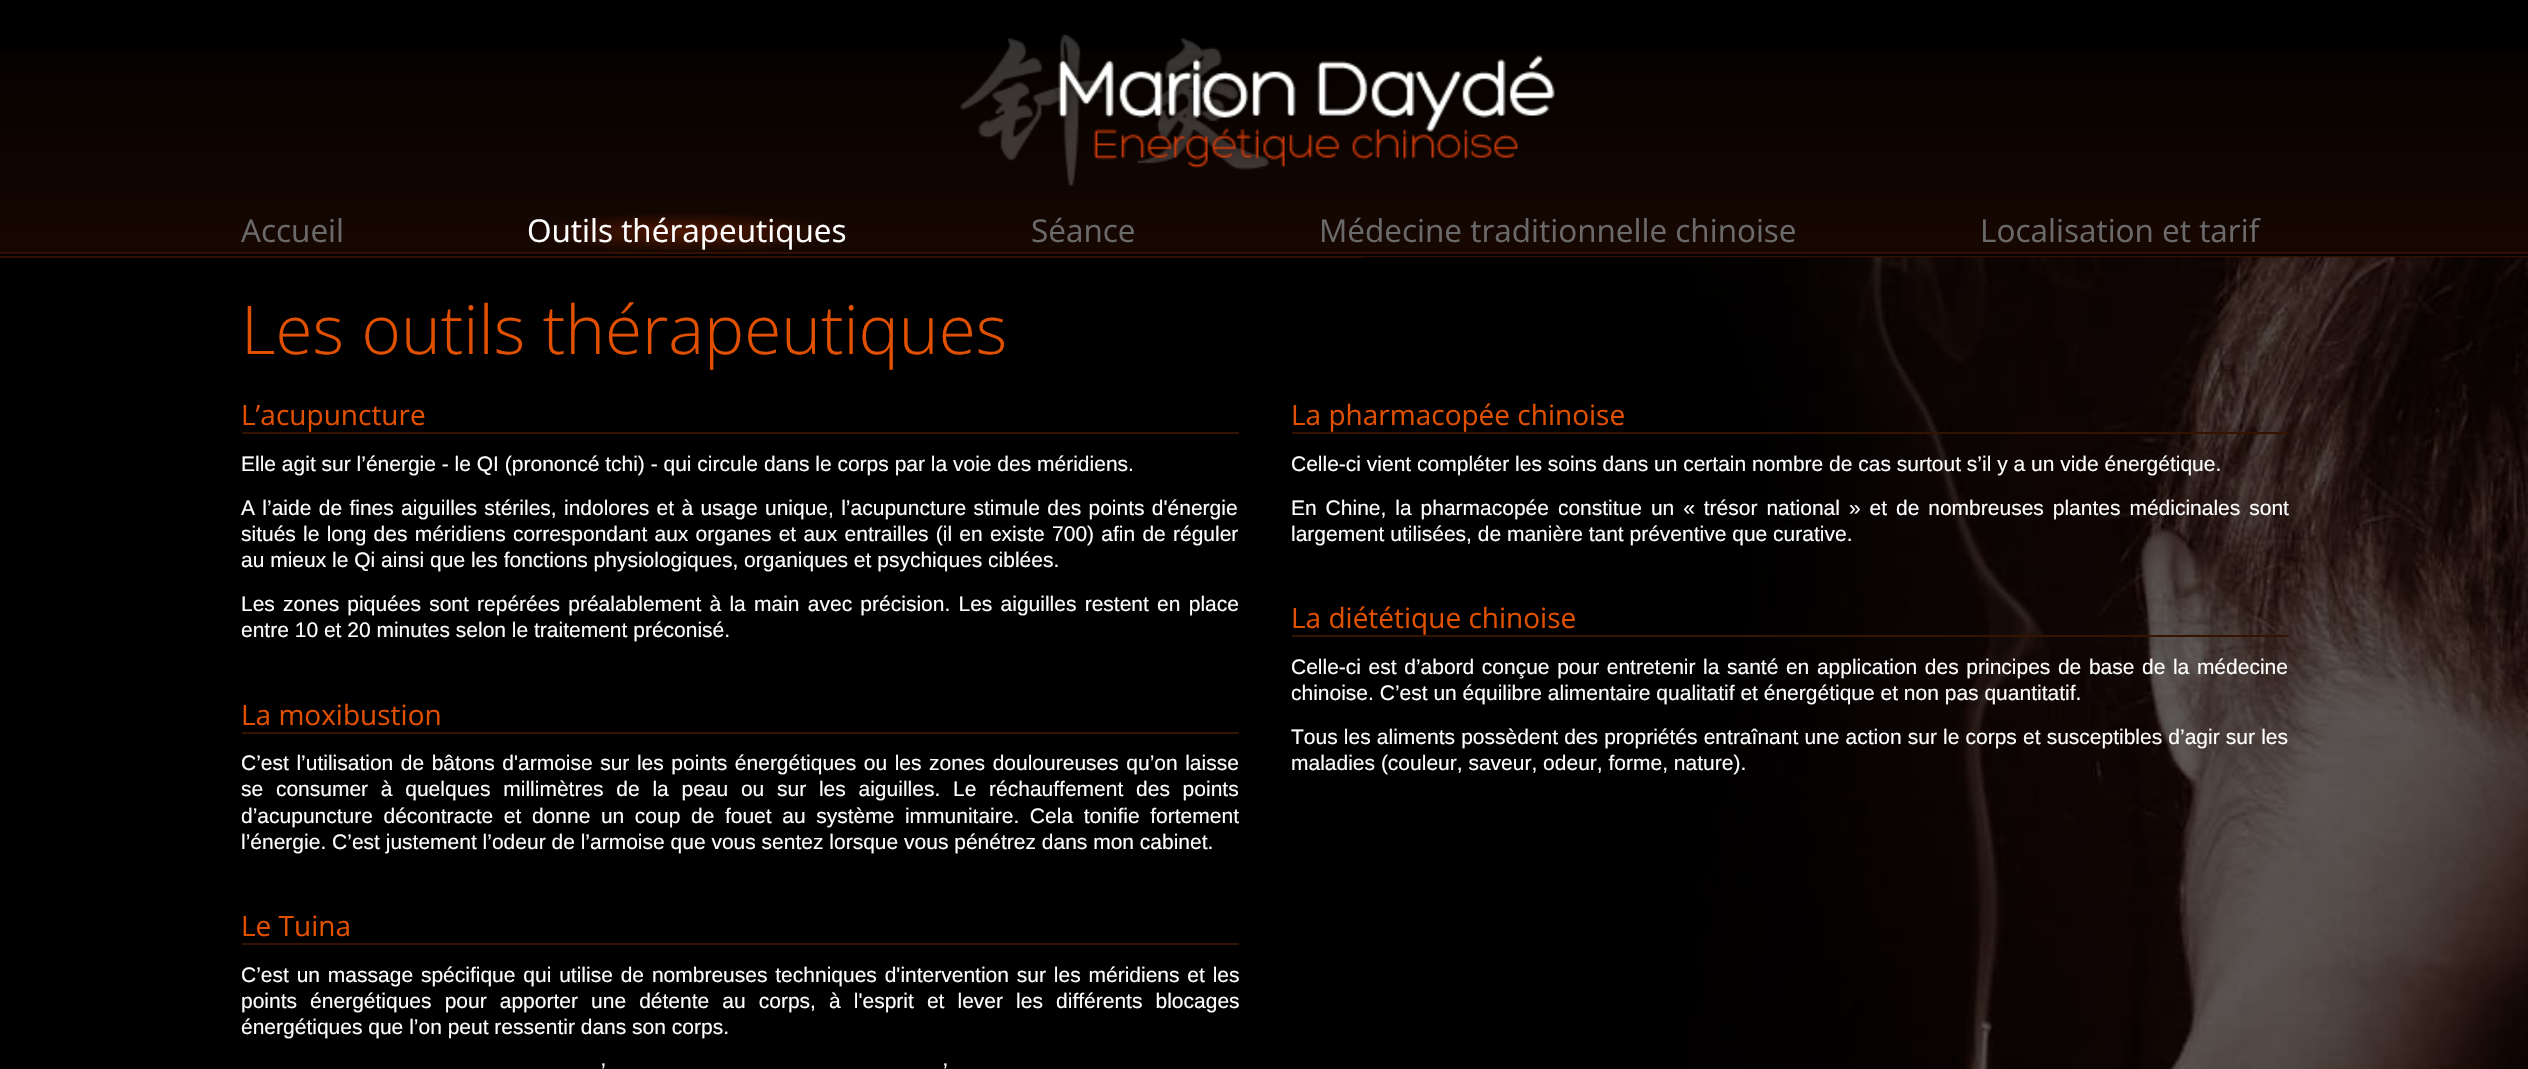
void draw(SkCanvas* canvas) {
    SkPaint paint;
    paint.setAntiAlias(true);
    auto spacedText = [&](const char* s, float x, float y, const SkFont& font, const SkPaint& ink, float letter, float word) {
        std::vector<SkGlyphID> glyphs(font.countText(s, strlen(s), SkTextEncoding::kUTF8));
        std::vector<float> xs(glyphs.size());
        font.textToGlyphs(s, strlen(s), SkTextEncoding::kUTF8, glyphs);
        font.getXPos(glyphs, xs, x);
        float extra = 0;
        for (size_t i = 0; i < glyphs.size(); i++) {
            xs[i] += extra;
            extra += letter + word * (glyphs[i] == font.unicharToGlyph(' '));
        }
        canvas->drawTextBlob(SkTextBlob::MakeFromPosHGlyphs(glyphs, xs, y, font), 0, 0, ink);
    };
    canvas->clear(0xFF000000);
    canvas->drawImageRect(SkImages::DeferredFromEncodedData(SkData::MakeFromFileName("img1.png")), SkRect::MakeXYWH(0, 49, 2528, 203), SkSamplingOptions());
    paint.setColor(0xFF340F03);
    canvas->drawRect(SkRect::MakeXYWH(0, 252, 2528, 2), paint);
    canvas->drawRect(SkRect::MakeXYWH(0, 256, 2528, 2), paint);
    canvas->drawImageRect(SkImages::DeferredFromEncodedData(SkData::MakeFromFileName("img2.png")), SkRect::MakeXYWH(960, 34, 595, 152), SkSamplingOptions());
    SkFont font1(fontMgr->matchFamilyStyle("Open Sans", SkFontStyle::Normal()), 31.5f);
    font1.setSubpixel(true);
    paint.setColor(0xFF6A6A6A);
    canvas->drawString("Accueil", 241, 242, font1, paint);
    paint.setColor(0xFFFFFFFF);
    canvas->drawString("Outils thérapeutiques", 527, 242, font1, paint);
    paint.setColor(0xFF6A6A6A);
    canvas->drawString("Séance", 1031, 242, font1, paint);
    canvas->drawString("Médecine traditionnelle chinoise", 1319, 242, font1, paint);
    canvas->drawString("Localisation et tarif", 1980, 242, font1, paint);
    canvas->drawImageRect(SkImages::DeferredFromEncodedData(SkData::MakeFromFileName("img3.png")), SkRect::MakeXYWH(1363, 257, 1165, 812), SkSamplingOptions());
    SkFont font2(fontMgr->matchFamilyStyle("Open Sans", SkFontStyle(300, SkFontStyle::kNormal_Width, SkFontStyle::kUpright_Slant)), 67.4f);
    font2.setSubpixel(true);
    paint.setColor(0xFFE05000);
    canvas->drawString("Les outils thérapeutiques", 241, 354, font2, paint);
    paint.setColor(0xFF341300);
    canvas->drawRect(SkRect::MakeXYWH(242, 432, 997, 2), paint);
    SkFont font3(fontMgr->matchFamilyStyle("Open Sans", SkFontStyle::Normal()), 28);
    font3.setSubpixel(true);
    paint.setColor(0xFFE05000);
    canvas->drawString("L’acupuncture", 241, 425, font3, paint);
    SkFont font4(fontMgr->matchFamilyStyle("Liberation Sans", SkFontStyle::Normal()), 21);
    font4.setSubpixel(true);
    paint.setColor(0xFFFFFFFF);
    canvas->drawString("Elle agit sur l’énergie - le QI (prononcé tchi) - qui circule dans le corps par la voie des méridiens.", 241, 471, font4, paint);
    spacedText("A l’aide de fines aiguilles stériles, indolores et à usage unique, l’acupuncture stimule des points d'énergie", 241, 515, font4, paint, 0, 1.5f);
    spacedText("situés le long des méridiens correspondant aux organes et aux entrailles (il en existe 700) afin de réguler", 241, 541, font4, paint, 0, 1.4f);
    canvas->drawString("au mieux le Qi ainsi que les fonctions physiologiques, organiques et psychiques ciblées.", 241, 567, font4, paint);
    spacedText("Les zones piquées sont repérées préalablement à la main avec précision. Les aiguilles restent en place", 241, 611, font4, paint, 0, 2.4f);
    canvas->drawString("entre 10 et 20 minutes selon le traitement préconisé.", 241, 637, font4, paint);
    paint.setColor(0xFF341300);
    canvas->drawRect(SkRect::MakeXYWH(242, 732, 997, 2), paint);
    paint.setColor(0xFFE05000);
    canvas->drawString("La moxibustion", 241, 725, font3, paint);
    paint.setColor(0xFFFFFFFF);
    spacedText("C’est l’utilisation de bâtons d'armoise sur les points énergétiques ou les zones douloureuses qu’on laisse", 241, 770, font4, paint, 0, 1.7f);
    spacedText("se consumer à quelques millimètres de la peau ou sur les aiguilles. Le réchauffement des points", 241, 796, font4, paint, 0, 6.9f);
    spacedText("d’acupuncture décontracte et donne un coup de fouet au système immunitaire. Cela tonifie fortement", 241, 823, font4, paint, 0, 4.75f);
    canvas->drawString("l’énergie. C’est justement l’odeur de l’armoise que vous sentez lorsque vous pénétrez dans mon cabinet.", 241, 849, font4, paint);
    paint.setColor(0xFF341300);
    canvas->drawRect(SkRect::MakeXYWH(242, 943, 997, 2), paint);
    paint.setColor(0xFFE05000);
    canvas->drawString("Le Tuina", 241, 936, font3, paint);
    paint.setColor(0xFFFFFFFF);
    spacedText("C’est un massage spécifique qui utilise de nombreuses techniques d'intervention sur les méridiens et les", 241, 982, font4, paint, 0, 2);
    spacedText("points énergétiques pour apporter une détente au corps, à l'esprit et lever les différents blocages", 241, 1008, font4, paint, 0, 7.25f);
    canvas->drawString("énergétiques que l’on peut ressentir dans son corps.", 241, 1034, font4, paint);
    spacedText("’", 601, 1078, font4, paint, 0, 1);
    spacedText("’", 943, 1078, font4, paint, 0, 1);
    paint.setColor(0xFF341300);
    canvas->drawRect(SkRect::MakeXYWH(1292, 432, 997, 2), paint);
    paint.setColor(0xFFE05000);
    canvas->drawString("La pharmacopée chinoise", 1291, 425, font3, paint);
    paint.setColor(0xFFFFFFFF);
    canvas->drawString("Celle-ci vient compléter les soins dans un certain nombre de cas surtout s’il y a un vide énergétique.", 1291, 471, font4, paint);
    spacedText("En Chine, la pharmacopée constitue un « trésor national » et de nombreuses plantes médicinales sont", 1291, 515, font4, paint, 0, 3.1f);
    canvas->drawString("largement utilisées, de manière tant préventive que curative.", 1291, 541, font4, paint);
    paint.setColor(0xFF341300);
    canvas->drawRect(SkRect::MakeXYWH(1292, 635, 997, 2), paint);
    paint.setColor(0xFFE05000);
    canvas->drawString("La diététique chinoise", 1291, 628, font3, paint);
    paint.setColor(0xFFFFFFFF);
    spacedText("Celle-ci est d’abord conçue pour entretenir la santé en application des principes de base de la médecine", 1291, 674, font4, paint, 0, 1.75f);
    canvas->drawString("chinoise. C’est un équilibre alimentaire qualitatif et énergétique et non pas quantitatif.", 1291, 700, font4, paint);
    spacedText("Tous les aliments possèdent des propriétés entraînant une action sur le corps et susceptibles d’agir sur les", 1291, 744, font4, paint, 0, 0.3f);
    canvas->drawString("maladies (couleur, saveur, odeur, forme, nature).", 1291, 770, font4, paint);
}
